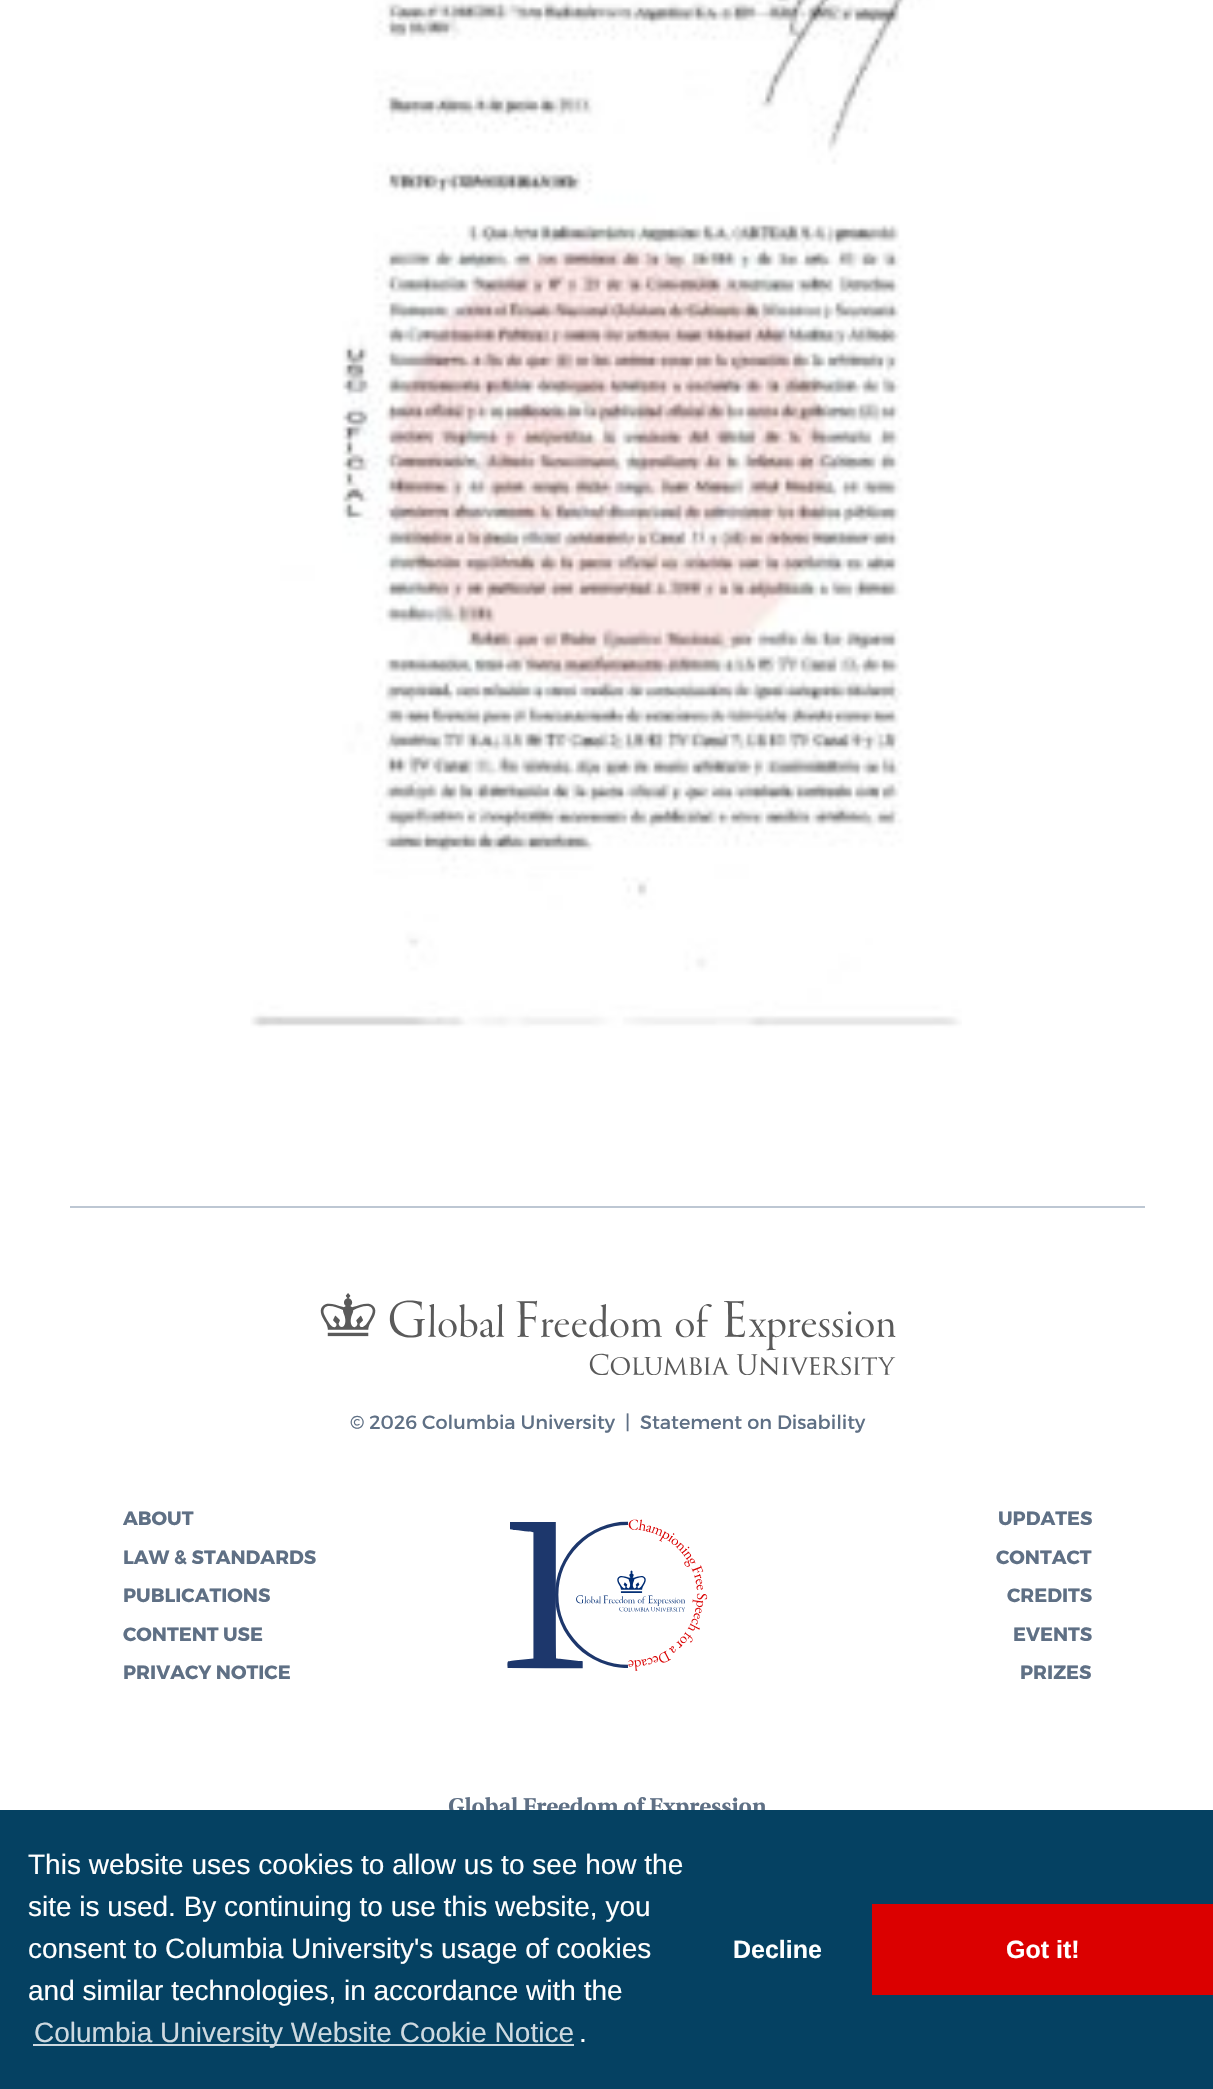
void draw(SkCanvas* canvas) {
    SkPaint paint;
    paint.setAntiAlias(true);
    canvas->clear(0xFFFFFFFF);
    canvas->drawImageRect(SkImages::DeferredFromEncodedData(SkData::MakeFromFileName("img1.png")), SkRect::MakeXYWH(250, 0, 712, 1028), SkSamplingOptions());
    paint.setColor(0xFFBDC7D3);
    canvas->drawRect(SkRect::MakeXYWH(70, 1206, 1075, 2), paint);
    canvas->drawImageRect(SkImages::DeferredFromEncodedData(SkData::MakeFromFileName("img2.png")), SkRect::MakeXYWH(320, 1293, 576, 82), SkSamplingOptions());
    SkFont font1(fontMgr->matchFamilyStyle("Montserrat", SkFontStyle::Normal()), 19.25f);
    font1.setSubpixel(true);
    paint.setColor(0xFF5F7085);
    canvas->drawString("© 2026 Columbia University", 350, 1429, font1, paint);
    canvas->drawString("|", 625, 1429, font1, paint);
    canvas->drawString("Statement on Disability", 640, 1429, font1, paint);
    canvas->drawImageRect(SkImages::DeferredFromEncodedData(SkData::MakeFromFileName("img3.png")), SkRect::MakeXYWH(507, 1519, 201, 152), SkSamplingOptions());
    SkFont font2(fontMgr->matchFamilyStyle("Montserrat", SkFontStyle::Bold()), 19.25f);
    font2.setSubpixel(true);
    canvas->drawString("ABOUT", 123, 1525, font2, paint);
    canvas->drawString("LAW & STANDARDS", 123, 1564, font2, paint);
    canvas->drawString("PUBLICATIONS", 123, 1602, font2, paint);
    canvas->drawString("CONTENT USE", 123, 1641, font2, paint);
    canvas->drawString("PRIVACY NOTICE", 123, 1679, font2, paint);
    canvas->drawString("UPDATES", 998, 1525, font2, paint);
    canvas->drawString("CONTACT", 996, 1564, font2, paint);
    canvas->drawString("CREDITS", 1007, 1602, font2, paint);
    canvas->drawString("EVENTS", 1013, 1641, font2, paint);
    canvas->drawString("PRIZES", 1020, 1679, font2, paint);
    SkFont font3(fontMgr->matchFamilyStyle("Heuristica", SkFontStyle::Bold()), 22.75f);
    font3.setSubpixel(true);
    canvas->drawString("Global Freedom of Expression", 448, 1814, font3, paint);
    paint.setColor(0xFF054162);
    canvas->drawRect(SkRect::MakeXYWH(0, 1810, 1213, 279), paint);
    SkFont font4(fontMgr->matchFamilyStyle("Liberation Sans", SkFontStyle::Normal()), 28);
    font4.setSubpixel(true);
    paint.setColor(0xFFFFFFFF);
    canvas->drawString("This website uses cookies to allow us to see how the", 28, 1874, font4, paint);
    canvas->drawString("site is used. By continuing to use this website, you", 28, 1916, font4, paint);
    canvas->drawString("consent to Columbia University's usage of cookies", 28, 1958, font4, paint);
    canvas->drawString("and similar technologies, in accordance with the", 28, 2000, font4, paint);
    paint.setColor(0xFFCDD9E0);
    canvas->drawRect(SkRect::MakeXYWH(33, 2044, 541, 2), paint);
    canvas->drawString("Columbia University Website Cookie Notice", 34, 2042, font4, paint);
    paint.setColor(0xFFFFFFFF);
    canvas->drawString(".", 579, 2042, font4, paint);
    SkFont font5(fontMgr->matchFamilyStyle("Liberation Sans", SkFontStyle::Bold()), 25);
    font5.setSubpixel(true);
    canvas->drawString("Decline", 733, 1958, font5, paint);
    paint.setColor(0xFFDB0000);
    canvas->drawRect(SkRect::MakeXYWH(872, 1904, 341, 91), paint);
    paint.setColor(0xFFFFFFFF);
    canvas->drawString("Got it!", 1006, 1958, font5, paint);
}
